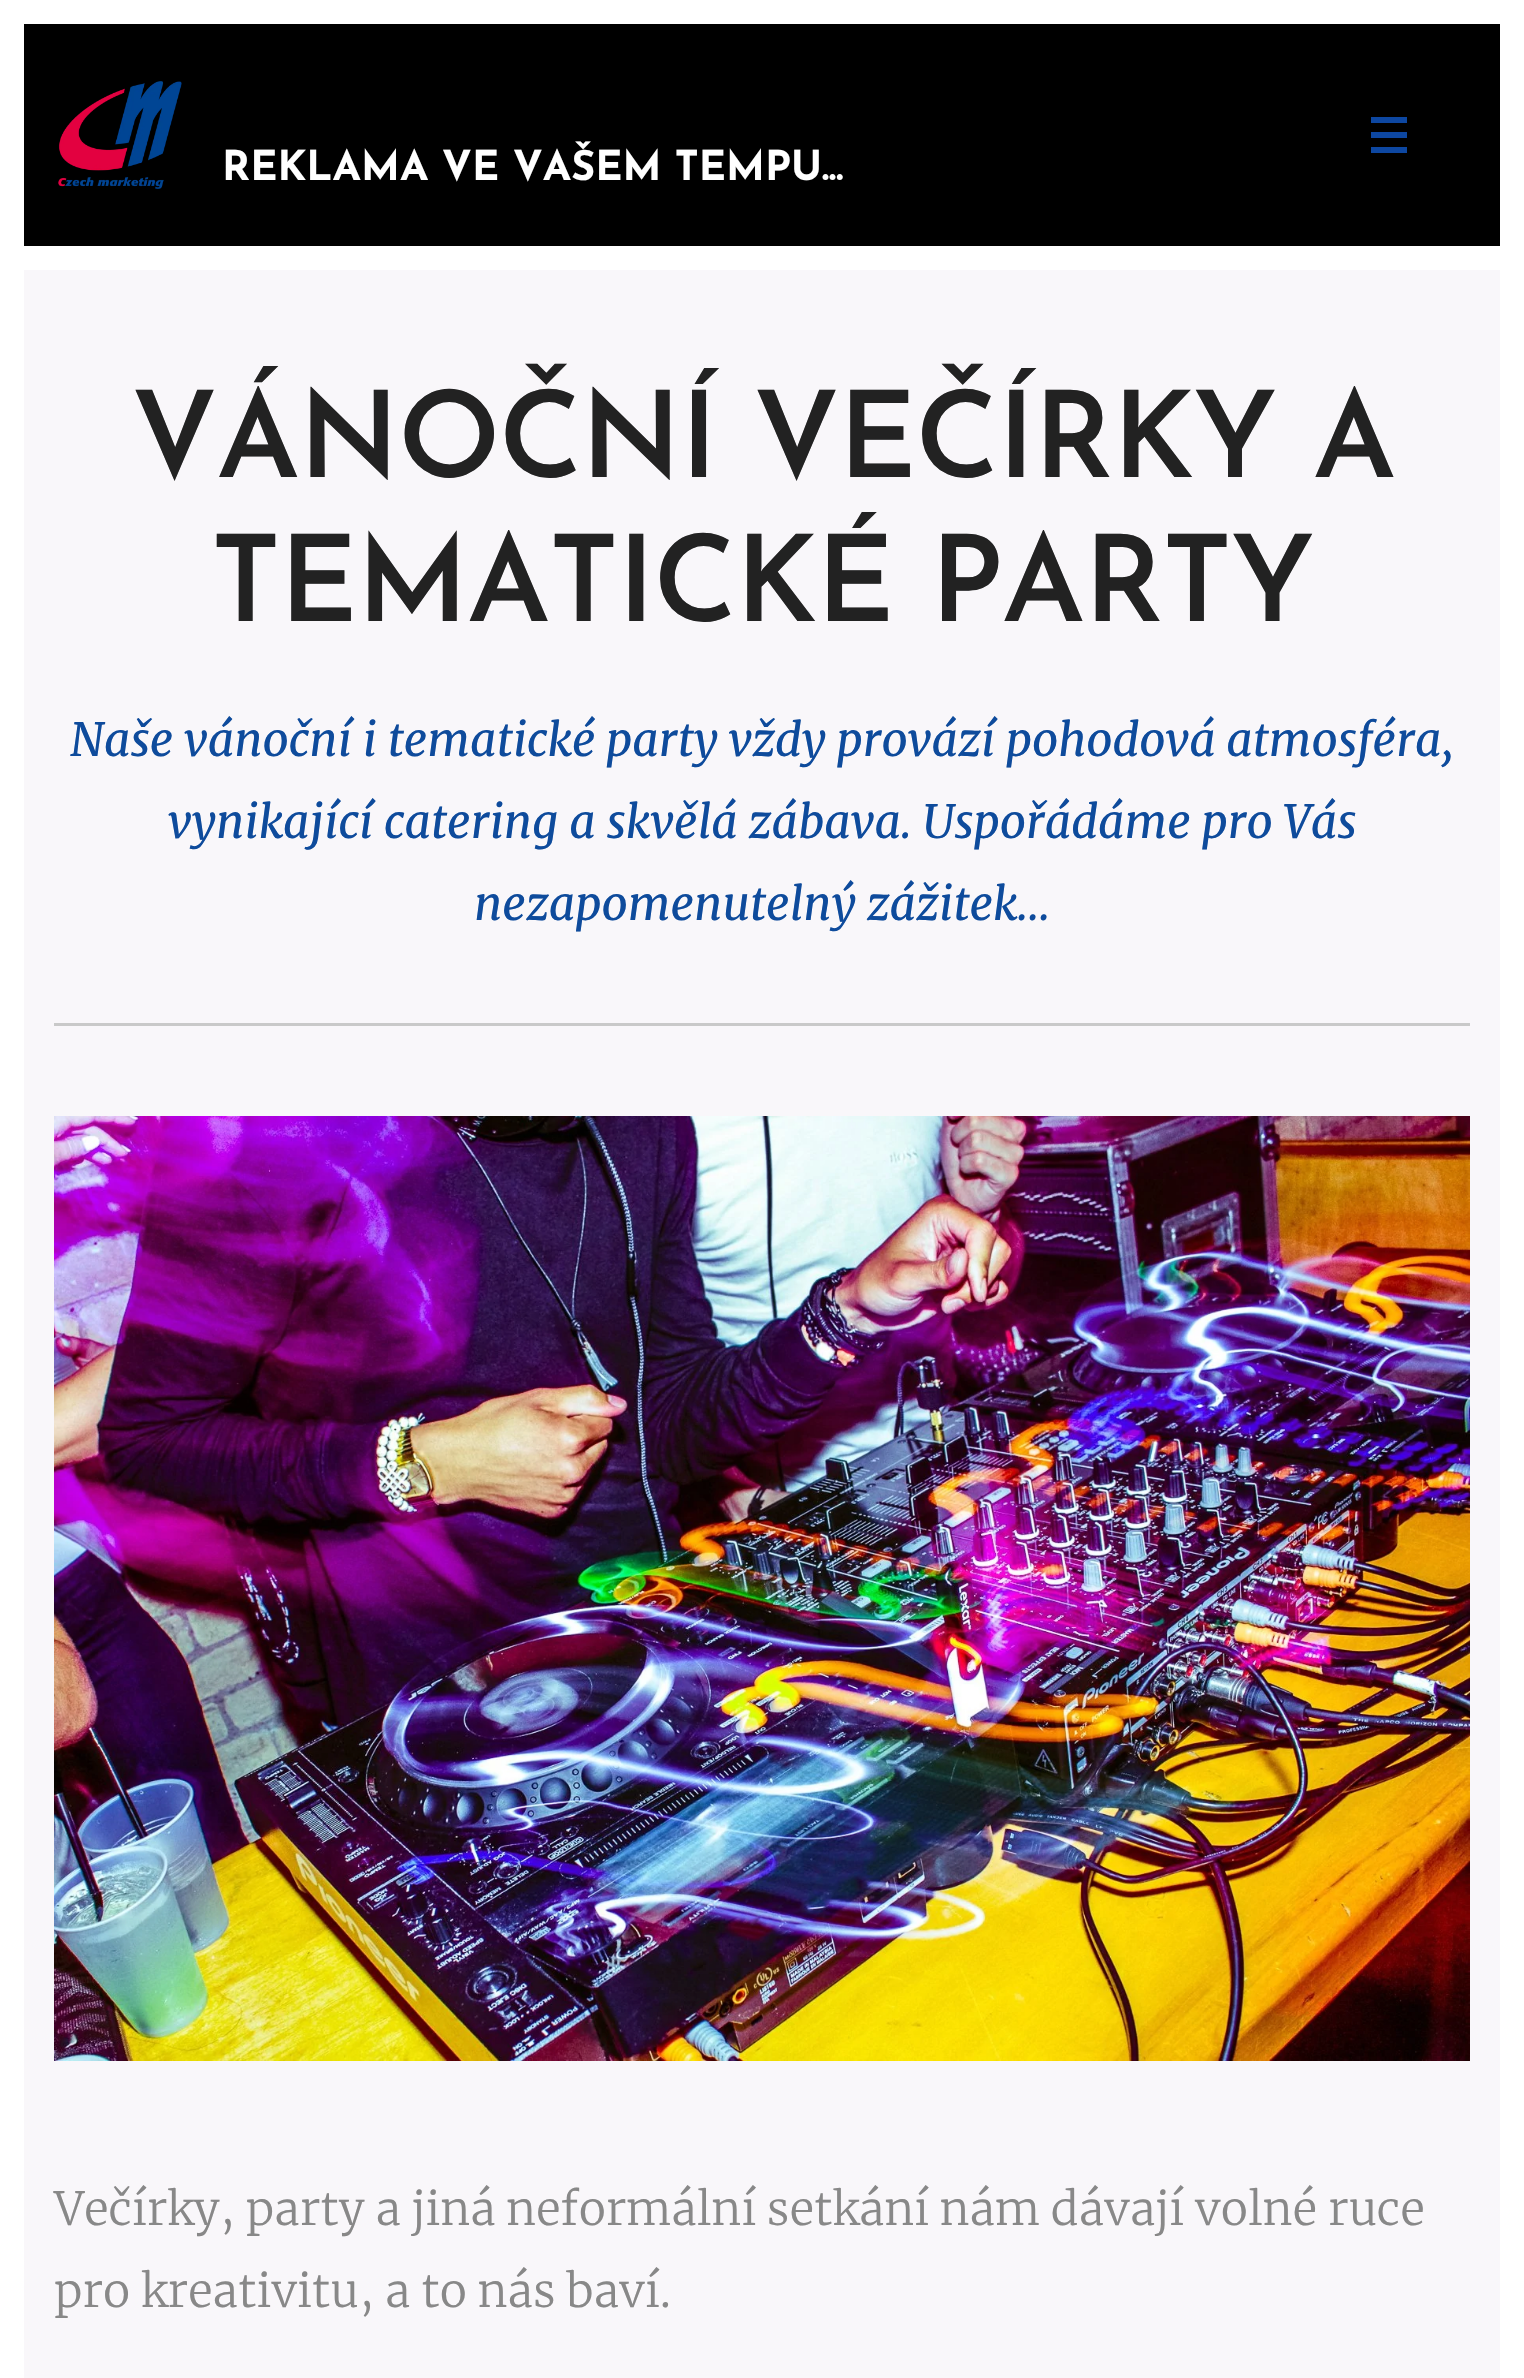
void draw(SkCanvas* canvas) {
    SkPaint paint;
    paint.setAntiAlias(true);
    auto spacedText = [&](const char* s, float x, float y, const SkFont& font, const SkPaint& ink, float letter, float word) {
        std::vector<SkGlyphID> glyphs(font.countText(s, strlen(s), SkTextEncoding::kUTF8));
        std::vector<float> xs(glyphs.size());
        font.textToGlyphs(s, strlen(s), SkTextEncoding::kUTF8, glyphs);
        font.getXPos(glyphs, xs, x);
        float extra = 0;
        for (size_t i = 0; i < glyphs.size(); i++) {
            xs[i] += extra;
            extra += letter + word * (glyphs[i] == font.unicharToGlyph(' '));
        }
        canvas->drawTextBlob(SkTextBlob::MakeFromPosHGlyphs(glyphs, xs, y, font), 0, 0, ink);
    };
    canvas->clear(0xFFFFFFFF);
    paint.setColor(0xFF000000);
    canvas->drawRect(SkRect::MakeXYWH(24, 24, 1476, 222), paint);
    paint.setColor(0xFF0D47A1);
    canvas->drawRect(SkRect::MakeXYWH(1371, 132, 36, 6), paint);
    canvas->drawRect(SkRect::MakeXYWH(1371, 117, 36, 6), paint);
    canvas->drawRect(SkRect::MakeXYWH(1371, 147, 36, 6), paint);
    canvas->drawImageRect(SkImages::DeferredFromEncodedData(SkData::MakeFromFileName("img1.png")), SkRect::MakeXYWH(58, 81, 124, 108), SkSamplingOptions());
    SkFont font1(fontMgr->matchFamilyStyle("Josefin Sans", SkFontStyle::Bold()), 41);
    font1.setSubpixel(true);
    paint.setColor(0xFFFFFFFF);
    canvas->drawString("REKLAMA VE VAŠEM TEMPU...", 222, 180, font1, paint);
    paint.setColor(0xFFF9F7FA);
    canvas->drawRect(SkRect::MakeXYWH(24, 270, 1476, 2108), paint);
    SkFont font2(fontMgr->matchFamilyStyle("Josefin Sans", SkFontStyle(600, SkFontStyle::kNormal_Width, SkFontStyle::kUpright_Slant)), 120);
    font2.setSubpixel(true);
    paint.setColor(0xFF222222);
    spacedText("VÁNOČNÍ VEČÍRKY A", 131, 477, font2, paint, -1.75f, 0);
    spacedText("TEMATICKÉ PARTY", 211, 621, font2, paint, -1.75f, 0);
    SkFont font3(fontMgr->matchFamilyStyle("Merriweather", SkFontStyle::Italic()), 45.6f);
    font3.setSubpixel(true);
    paint.setColor(0xFF0E4B9C);
    spacedText("Naše vánoční i tematické party vždy provází pohodová atmosféra,", 70, 756, font3, paint, 0, -0.25f);
    canvas->drawString("vynikající catering a skvělá zábava. Uspořádáme pro Vás", 168, 838, font3, paint);
    canvas->drawString("nezapomenutelný zážitek...", 474, 920, font3, paint);
    paint.setColor(0xFFC9C9C9);
    canvas->drawRect(SkRect::MakeXYWH(54, 1023, 1416, 3), paint);
    canvas->drawImageRect(SkImages::DeferredFromEncodedData(SkData::MakeFromFileName("img2.png")), SkRect::MakeXYWH(54, 1116, 1416, 945), SkSamplingOptions());
    SkFont font4(fontMgr->matchFamilyStyle("Merriweather", SkFontStyle(300, SkFontStyle::kNormal_Width, SkFontStyle::kUpright_Slant)), 45.6f);
    font4.setSubpixel(true);
    paint.setColor(0xFF888888);
    spacedText("Večírky, party a jiná neformální setkání nám dávají volné ruce", 54, 2225, font4, paint, 0, -0.1f);
    canvas->drawString("pro kreativitu, a to nás baví.", 54, 2307, font4, paint);
}
